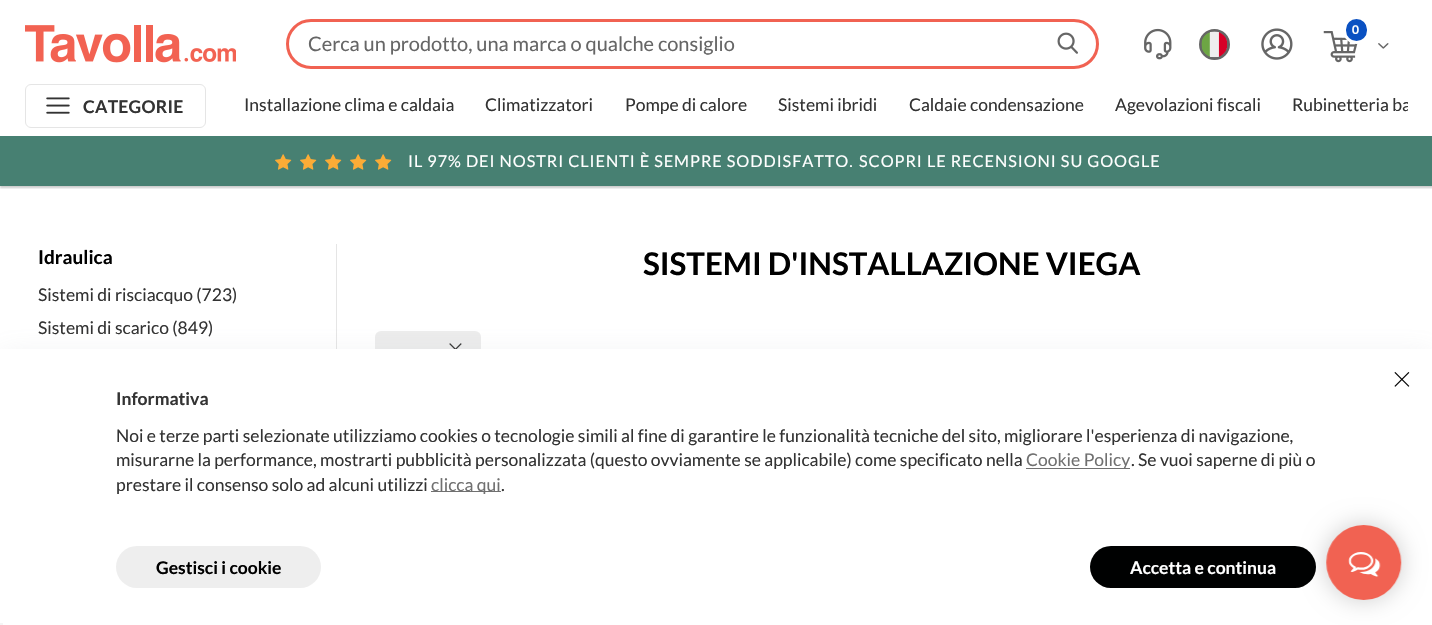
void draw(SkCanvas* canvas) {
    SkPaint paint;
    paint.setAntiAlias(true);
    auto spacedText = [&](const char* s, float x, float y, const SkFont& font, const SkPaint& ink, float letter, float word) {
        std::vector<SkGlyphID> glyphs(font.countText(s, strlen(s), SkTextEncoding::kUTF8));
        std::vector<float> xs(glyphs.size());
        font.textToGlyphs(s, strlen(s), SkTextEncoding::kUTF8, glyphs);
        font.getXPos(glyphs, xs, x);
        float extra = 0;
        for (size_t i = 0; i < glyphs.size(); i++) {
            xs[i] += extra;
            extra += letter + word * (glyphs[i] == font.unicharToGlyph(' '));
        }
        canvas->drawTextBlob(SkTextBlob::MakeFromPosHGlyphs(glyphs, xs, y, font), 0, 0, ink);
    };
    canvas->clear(0xFFFFFFFF);
    canvas->save();
    canvas->clipRect(SkRect::MakeXYWH(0, 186, 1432, 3));
    paint.setColor(0x33000000);
    paint.setMaskFilter(SkMaskFilter::MakeBlur(kNormal_SkBlurStyle, 1));
    canvas->drawRect(SkRect::MakeXYWH(0, 1, 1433, 187), paint);
    paint.setMaskFilter(nullptr);
    canvas->restore();
    canvas->drawImageRect(SkImages::DeferredFromEncodedData(SkData::MakeFromFileName("img1.png")), SkRect::MakeXYWH(25, 25, 211, 38), SkSamplingOptions());
    paint.setStyle(SkPaint::kStroke_Style);
    paint.setStrokeWidth(3);
    paint.setColor(0xFFF16252);
    canvas->drawRoundRect(SkRect::MakeXYWH(287.5f, 20.5f, 810, 47), 23.5f, 23.5f, paint);
    SkFont font1(fontMgr->matchFamilyStyle("Lato", SkFontStyle::Normal()), 20);
    font1.setSubpixel(true);
    paint.setStyle(SkPaint::kFill_Style);
    paint.setColor(0xFF666666);
    canvas->drawString("Cerca un prodotto, una marca o qualche consiglio", 308, 51, font1, paint);
    canvas->drawImageRect(SkImages::DeferredFromEncodedData(SkData::MakeFromFileName("img2.png")), SkRect::MakeXYWH(1057, 32, 21, 22), SkSamplingOptions());
    canvas->drawImageRect(SkImages::DeferredFromEncodedData(SkData::MakeFromFileName("img3.png")), SkRect::MakeXYWH(1144, 28, 28, 32), SkSamplingOptions());
    paint.setStyle(SkPaint::kStroke_Style);
    canvas->drawCircle(1214.5f, 44.5f, 14, paint);
    canvas->drawImageRect(SkImages::DeferredFromEncodedData(SkData::MakeFromFileName("img4.png")), SkRect::MakeXYWH(1201, 31, 27, 27), SkSamplingOptions());
    canvas->drawImageRect(SkImages::DeferredFromEncodedData(SkData::MakeFromFileName("img5.png")), SkRect::MakeXYWH(1261, 28, 32, 32), SkSamplingOptions());
    canvas->drawImageRect(SkImages::DeferredFromEncodedData(SkData::MakeFromFileName("img6.png")), SkRect::MakeXYWH(1323, 31, 35, 32), SkSamplingOptions());
    paint.setStyle(SkPaint::kFill_Style);
    paint.setColor(0xFF0A51C2);
    canvas->drawRoundRect(SkRect::MakeXYWH(1344.5f, 17.5f, 24, 25), 12, 12, paint);
    paint.setStyle(SkPaint::kStroke_Style);
    paint.setColor(0xFFFFFFFF);
    canvas->drawRoundRect(SkRect::MakeXYWH(1344.5f, 17.5f, 24, 25), 12, 12, paint);
    SkFont font2(fontMgr->matchFamilyStyle("Lato", SkFontStyle::Bold()), 12);
    font2.setSubpixel(true);
    paint.setStyle(SkPaint::kFill_Style);
    canvas->drawString("0", 1352, 34, font2, paint);
    canvas->drawImageRect(SkImages::DeferredFromEncodedData(SkData::MakeFromFileName("img7.png")), SkRect::MakeXYWH(1378, 43, 11, 6), SkSamplingOptions());
    paint.setStyle(SkPaint::kStroke_Style);
    paint.setStrokeWidth(1);
    paint.setColor(0xFFE5E5E5);
    canvas->drawRoundRect(SkRect::MakeXYWH(25.5f, 84.5f, 180, 43), 5.5f, 5.5f, paint);
    canvas->drawImageRect(SkImages::DeferredFromEncodedData(SkData::MakeFromFileName("img8.png")), SkRect::MakeXYWH(46, 97, 24, 17), SkSamplingOptions());
    SkFont font3(fontMgr->matchFamilyStyle("Lato", SkFontStyle::Bold()), 17.5f);
    font3.setSubpixel(true);
    paint.setStyle(SkPaint::kFill_Style);
    paint.setColor(0xFF333333);
    spacedText("CATEGORIE", 83, 113, font3, paint, 0.25f, 0);
    SkFont font4(fontMgr->matchFamilyStyle("Lato", SkFontStyle::Normal()), 17.5f);
    font4.setSubpixel(true);
    canvas->drawString("Installazione clima e caldaia", 244, 111, font4, paint);
    canvas->drawString("Climatizzatori", 485, 111, font4, paint);
    canvas->drawString("Pompe di calore", 625, 111, font4, paint);
    canvas->drawString("Sistemi ibridi", 778, 111, font4, paint);
    canvas->drawString("Caldaie condensazione", 909, 111, font4, paint);
    canvas->drawString("Agevolazioni fiscali", 1115, 111, font4, paint);
    canvas->save();
    canvas->clipRect(SkRect::MakeXYWH(244, 95, 1164, 21));
    canvas->drawString("Rubinetteria ba", 1292, 111, font4, paint);
    canvas->restore();
    paint.setColor(0xFF478072);
    canvas->drawRect(SkRect::MakeXYWH(0, 136, 1432, 50), paint);
    canvas->drawImageRect(SkImages::DeferredFromEncodedData(SkData::MakeFromFileName("img9.png")), SkRect::MakeXYWH(275, 154, 17, 16), SkSamplingOptions());
    canvas->drawImageRect(SkImages::DeferredFromEncodedData(SkData::MakeFromFileName("img9.png")), SkRect::MakeXYWH(300, 154, 17, 16), SkSamplingOptions());
    canvas->drawImageRect(SkImages::DeferredFromEncodedData(SkData::MakeFromFileName("img9.png")), SkRect::MakeXYWH(325, 154, 17, 16), SkSamplingOptions());
    canvas->drawImageRect(SkImages::DeferredFromEncodedData(SkData::MakeFromFileName("img9.png")), SkRect::MakeXYWH(350, 154, 17, 16), SkSamplingOptions());
    canvas->drawImageRect(SkImages::DeferredFromEncodedData(SkData::MakeFromFileName("img9.png")), SkRect::MakeXYWH(375, 154, 17, 16), SkSamplingOptions());
    SkFont font5(fontMgr->matchFamilyStyle("Lato", SkFontStyle::Normal()), 16.25f);
    font5.setSubpixel(true);
    paint.setColor(0xFFFFFFFF);
    spacedText("IL 97% DEI NOSTRI CLIENTI È SEMPRE SODDISFATTO.", 408, 167, font5, paint, 0.95f, 0);
    spacedText("SCOPRI LE RECENSIONI SU GOOGLE", 859, 167, font5, paint, 0.95f, 0);
    paint.setColor(0xFFE5E5E5);
    canvas->drawRect(SkRect::MakeXYWH(336, 244, 1, 105), paint);
    SkFont font6(fontMgr->matchFamilyStyle("Lato", SkFontStyle::Bold()), 19);
    font6.setSubpixel(true);
    paint.setColor(0xFF000000);
    canvas->drawString("Idraulica", 38, 264, font6, paint);
    paint.setColor(0xFF333333);
    canvas->drawString("Sistemi di risciacquo (723)", 38, 301, font4, paint);
    canvas->drawString("Sistemi di scarico (849)", 38, 334, font4, paint);
    SkFont font7(fontMgr->matchFamilyStyle("Lato", SkFontStyle::Bold()), 31.25f);
    font7.setSubpixel(true);
    paint.setColor(0xFF000000);
    canvas->drawString("SISTEMI D'INSTALLAZIONE VIEGA", 643, 275, font7, paint);
    paint.setColor(0xFFECECEC);
    canvas->drawRoundRect(SkRect::MakeXYWH(375, 331, 106, 35), 6, 6, paint);
    canvas->drawImageRect(SkImages::DeferredFromEncodedData(SkData::MakeFromFileName("img10.png")), SkRect::MakeXYWH(449, 343, 13, 6), SkSamplingOptions());
    paint.setColor(0x33959DA5);
    paint.setMaskFilter(SkMaskFilter::MakeBlur(kNormal_SkBlurStyle, 15));
    canvas->drawRect(SkRect::MakeXYWH(0, 359, 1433, 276), paint);
    paint.setMaskFilter(nullptr);
    paint.setColor(0xFFFFFFFF);
    canvas->drawRect(SkRect::MakeXYWH(0, 349, 1432, 276), paint);
    paint.setColor(0xFFF5F5F5);
    canvas->drawRect(SkRect::MakeXYWH(0, 623, 3, 2), paint);
    canvas->drawImageRect(SkImages::DeferredFromEncodedData(SkData::MakeFromFileName("img11.png")), SkRect::MakeXYWH(1394, 372, 16, 15), SkSamplingOptions());
    paint.setColor(0xFF333333);
    canvas->drawString("Informativa", 116, 405, font3, paint);
    canvas->drawString("Noi e terze parti selezionate utilizziamo cookies o tecnologie simili al fine di garantire le funzionalità tecniche del sito, migliorare l'esperienza di navigazione,", 116, 442, font4, paint);
    canvas->drawString("misurarne la performance, mostrarti pubblicità personalizzata (questo ovviamente se applicabile) come specificato nella", 116, 466, font4, paint);
    paint.setColor(0xFF707070);
    canvas->drawRect(SkRect::MakeXYWH(1026, 468, 104, 1), paint);
    canvas->drawString("Cookie Policy", 1026, 466, font4, paint);
    paint.setColor(0xFF333333);
    canvas->drawString(". Se vuoi saperne di più o", 1131, 466, font4, paint);
    canvas->drawString("prestare il consenso solo ad alcuni utilizzi", 116, 491, font4, paint);
    paint.setColor(0xFF707070);
    canvas->drawRect(SkRect::MakeXYWH(431, 491, 70, 1), paint);
    canvas->drawString("clicca qui", 431, 491, font4, paint);
    paint.setColor(0xFF333333);
    canvas->drawString(".", 501, 491, font4, paint);
    paint.setColor(0xFFEEEEEE);
    canvas->drawRoundRect(SkRect::MakeXYWH(116, 546, 205, 42), 21, 21, paint);
    paint.setColor(0xFF000000);
    canvas->drawString("Gestisci i cookie", 156, 574, font3, paint);
    paint.setColor(0xFF000101);
    canvas->drawRoundRect(SkRect::MakeXYWH(1090, 546, 226, 42), 21, 21, paint);
    paint.setColor(0xFFFFFFFF);
    canvas->drawString("Accetta e continua", 1130, 574, font3, paint);
    paint.setColor(0x33000000);
    paint.setMaskFilter(SkMaskFilter::MakeBlur(kNormal_SkBlurStyle, 12.5f));
    canvas->drawRoundRect(SkRect::MakeXYWH(1326, 525, 75, 75), 37.5f, 37.5f, paint);
    paint.setMaskFilter(nullptr);
    canvas->drawImageRect(SkImages::DeferredFromEncodedData(SkData::MakeFromFileName("img12.png")), SkRect::MakeXYWH(1326, 525, 76, 75), SkSamplingOptions());
}
